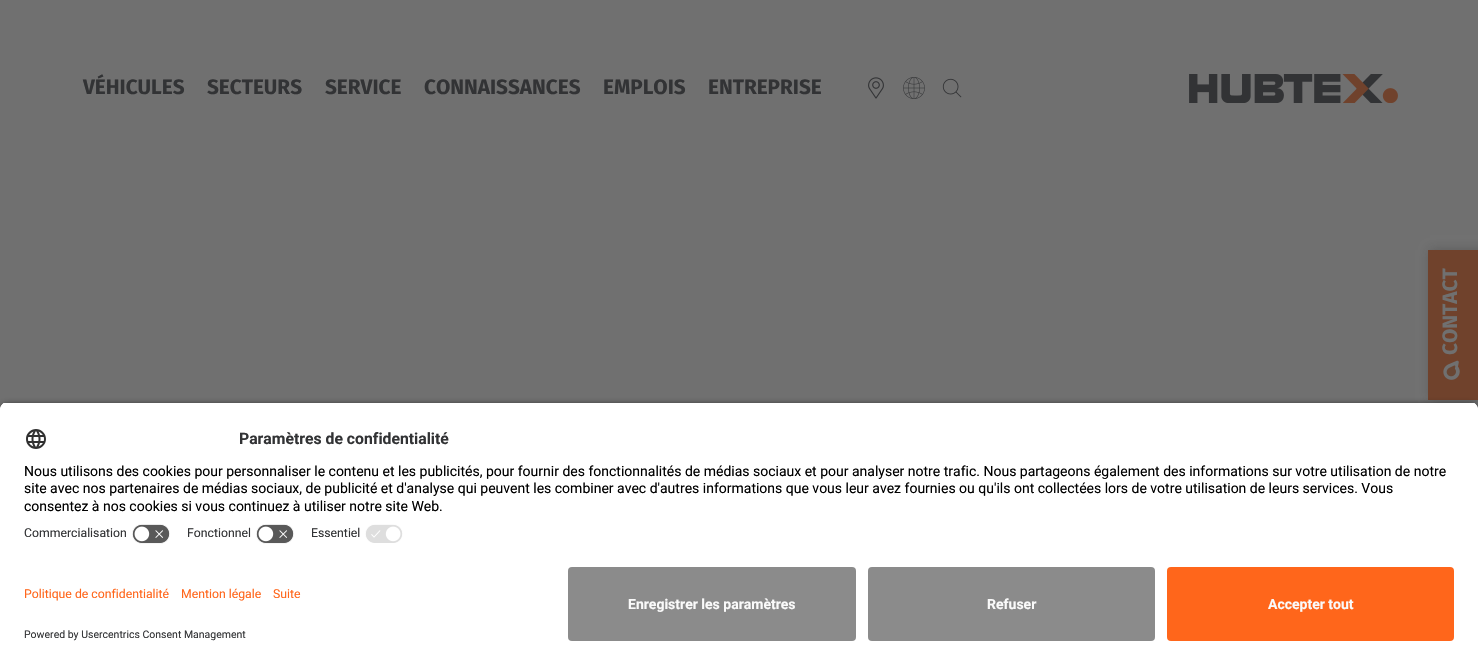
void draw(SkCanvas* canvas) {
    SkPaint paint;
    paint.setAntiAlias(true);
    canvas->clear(0xFF707070);
    SkFont font1(fontMgr->matchFamilyStyle("Fira Sans", SkFontStyle::Bold()), 20.75f);
    font1.setSubpixel(true);
    paint.setColor(0xFF323335);
    canvas->drawString("VÉHICULES", 83, 94, font1, paint);
    canvas->drawString("SECTEURS", 207, 94, font1, paint);
    canvas->drawString("SERVICE", 325, 94, font1, paint);
    canvas->drawString("CONNAISSANCES", 424, 94, font1, paint);
    canvas->drawString("EMPLOIS", 603, 94, font1, paint);
    canvas->drawString("ENTREPRISE", 708, 94, font1, paint);
    canvas->drawImageRect(SkImages::DeferredFromEncodedData(SkData::MakeFromFileName("img1.png")), SkRect::MakeXYWH(868, 77, 16, 22), SkSamplingOptions());
    canvas->drawImageRect(SkImages::DeferredFromEncodedData(SkData::MakeFromFileName("img2.png")), SkRect::MakeXYWH(903, 77, 22, 22), SkSamplingOptions());
    canvas->drawImageRect(SkImages::DeferredFromEncodedData(SkData::MakeFromFileName("img3.png")), SkRect::MakeXYWH(942, 78, 20, 20), SkSamplingOptions());
    canvas->drawImageRect(SkImages::DeferredFromEncodedData(SkData::MakeFromFileName("img4.png")), SkRect::MakeXYWH(1189, 74, 209, 29), SkSamplingOptions());
    paint.setColor(0x4D272727);
    paint.setMaskFilter(SkMaskFilter::MakeBlur(kNormal_SkBlurStyle, 5));
    canvas->drawRect(SkRect::MakeXYWH(1430, 250, 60, 150), paint);
    paint.setMaskFilter(nullptr);
    paint.setColor(0xFF70422C);
    canvas->drawRect(SkRect::MakeXYWH(1428, 250, 50, 150), paint);
    paint.setColor(0xFF707070);
    canvas->save();
    canvas->rotate(-90, 1457, 355);
    canvas->drawString("CONTACT", 1457, 355, font1, paint);
    canvas->restore();
    canvas->drawImageRect(SkImages::DeferredFromEncodedData(SkData::MakeFromFileName("img5.png")), SkRect::MakeXYWH(1443, 360, 17, 20), SkSamplingOptions());
    paint.setColor(0xCC000000);
    paint.setMaskFilter(SkMaskFilter::MakeBlur(kNormal_SkBlurStyle, 3.5f));
    canvas->drawRoundRect(SkRect::MakeXYWH(0, 405, 1478, 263), 8, 8, paint);
    paint.setMaskFilter(nullptr);
    canvas->save();
    canvas->clipPath(SkPathBuilder().moveTo(8, 402).lineTo(1470, 402).cubicTo(1474.5f, 402, 1478, 405.5f, 1478, 410).lineTo(1478, 559).lineTo(0, 559).lineTo(0, 410).cubicTo(0, 405.5f, 3.5f, 402, 8, 402).close().detach(), true);
    paint.setColor(0xFFFFFFFF);
    canvas->drawRect(SkRect::MakeXYWH(0, 403, 1478, 156), paint);
    canvas->drawRect(SkRect::MakeXYWH(0, 403, 1478, 116), paint);
    canvas->restore();
    canvas->drawImageRect(SkImages::DeferredFromEncodedData(SkData::MakeFromFileName("img6.png")), SkRect::MakeXYWH(26, 429, 20, 20), SkSamplingOptions());
    SkFont font2(fontMgr->matchFamilyStyle("Roboto", SkFontStyle::Bold()), 15.75f);
    font2.setSubpixel(true);
    paint.setColor(0xFF323335);
    canvas->drawString("Paramètres de confidentialité", 239, 444, font2, paint);
    SkFont font3(fontMgr->matchFamilyStyle("Roboto", SkFontStyle::Normal()), 14);
    font3.setSubpixel(true);
    paint.setColor(0xFF000000);
    canvas->drawString("Nous utilisons des cookies pour personnaliser le contenu et les publicités, pour fournir des fonctionnalités de médias sociaux et pour analyser notre trafic. Nous partageons également des informations sur votre utilisation de notre", 24, 476, font3, paint);
    canvas->drawString("site avec nos partenaires de médias sociaux, de publicité et d'analyse qui peuvent les combiner avec d'autres informations que vous leur avez fournies ou qu'ils ont collectées lors de votre utilisation de leurs services. Vous", 24, 493, font3, paint);
    canvas->drawString("consentez à nos cookies si vous continuez à utiliser notre site Web.", 24, 511, font3, paint);
    SkFont font4(fontMgr->matchFamilyStyle("Roboto", SkFontStyle::Normal()), 12.25f);
    font4.setSubpixel(true);
    paint.setColor(0xFF323335);
    canvas->drawString("Commercialisation", 24, 537, font4, paint);
    canvas->drawImageRect(SkImages::DeferredFromEncodedData(SkData::MakeFromFileName("img7.png")), SkRect::MakeXYWH(132, 524, 38, 20), SkSamplingOptions());
    canvas->drawString("Fonctionnel", 187, 537, font4, paint);
    canvas->drawImageRect(SkImages::DeferredFromEncodedData(SkData::MakeFromFileName("img7.png")), SkRect::MakeXYWH(256, 524, 38, 20), SkSamplingOptions());
    canvas->drawString("Essentiel", 311, 537, font4, paint);
    canvas->drawImageRect(SkImages::DeferredFromEncodedData(SkData::MakeFromFileName("img8.png")), SkRect::MakeXYWH(365, 524, 38, 19), SkSamplingOptions());
    paint.setColor(0xFFFFFFFF);
    canvas->drawRect(SkRect::MakeXYWH(0, 559, 1478, 106), paint);
    paint.setColor(0xFFFF661B);
    canvas->drawString("Politique de confidentialité", 24, 598, font4, paint);
    canvas->drawString("Mention légale", 181, 598, font4, paint);
    canvas->drawString("Suite", 273, 598, font4, paint);
    SkFont font5(fontMgr->matchFamilyStyle("Roboto", SkFontStyle::Normal()), 10.5f);
    font5.setSubpixel(true);
    paint.setColor(0xFF323335);
    canvas->drawString("Powered by Usercentrics Consent Management", 24, 638, font5, paint);
    paint.setColor(0xFF8B8B8B);
    canvas->drawRoundRect(SkRect::MakeXYWH(568, 567, 288, 74), 4, 4, paint);
    SkFont font6(fontMgr->matchFamilyStyle("Roboto", SkFontStyle::Bold()), 14);
    font6.setSubpixel(true);
    paint.setColor(0xFFFAFAFA);
    canvas->drawString("Enregistrer les paramètres", 628, 609, font6, paint);
    paint.setColor(0xFF8B8B8B);
    canvas->drawRoundRect(SkRect::MakeXYWH(868, 567, 287, 74), 4, 4, paint);
    paint.setColor(0xFFFAFAFA);
    canvas->drawString("Refuser", 987, 609, font6, paint);
    paint.setColor(0xFFFF661B);
    canvas->drawRoundRect(SkRect::MakeXYWH(1167, 567, 287, 74), 4, 4, paint);
    paint.setColor(0xFFFAFAFA);
    canvas->drawString("Accepter tout", 1268, 609, font6, paint);
}
